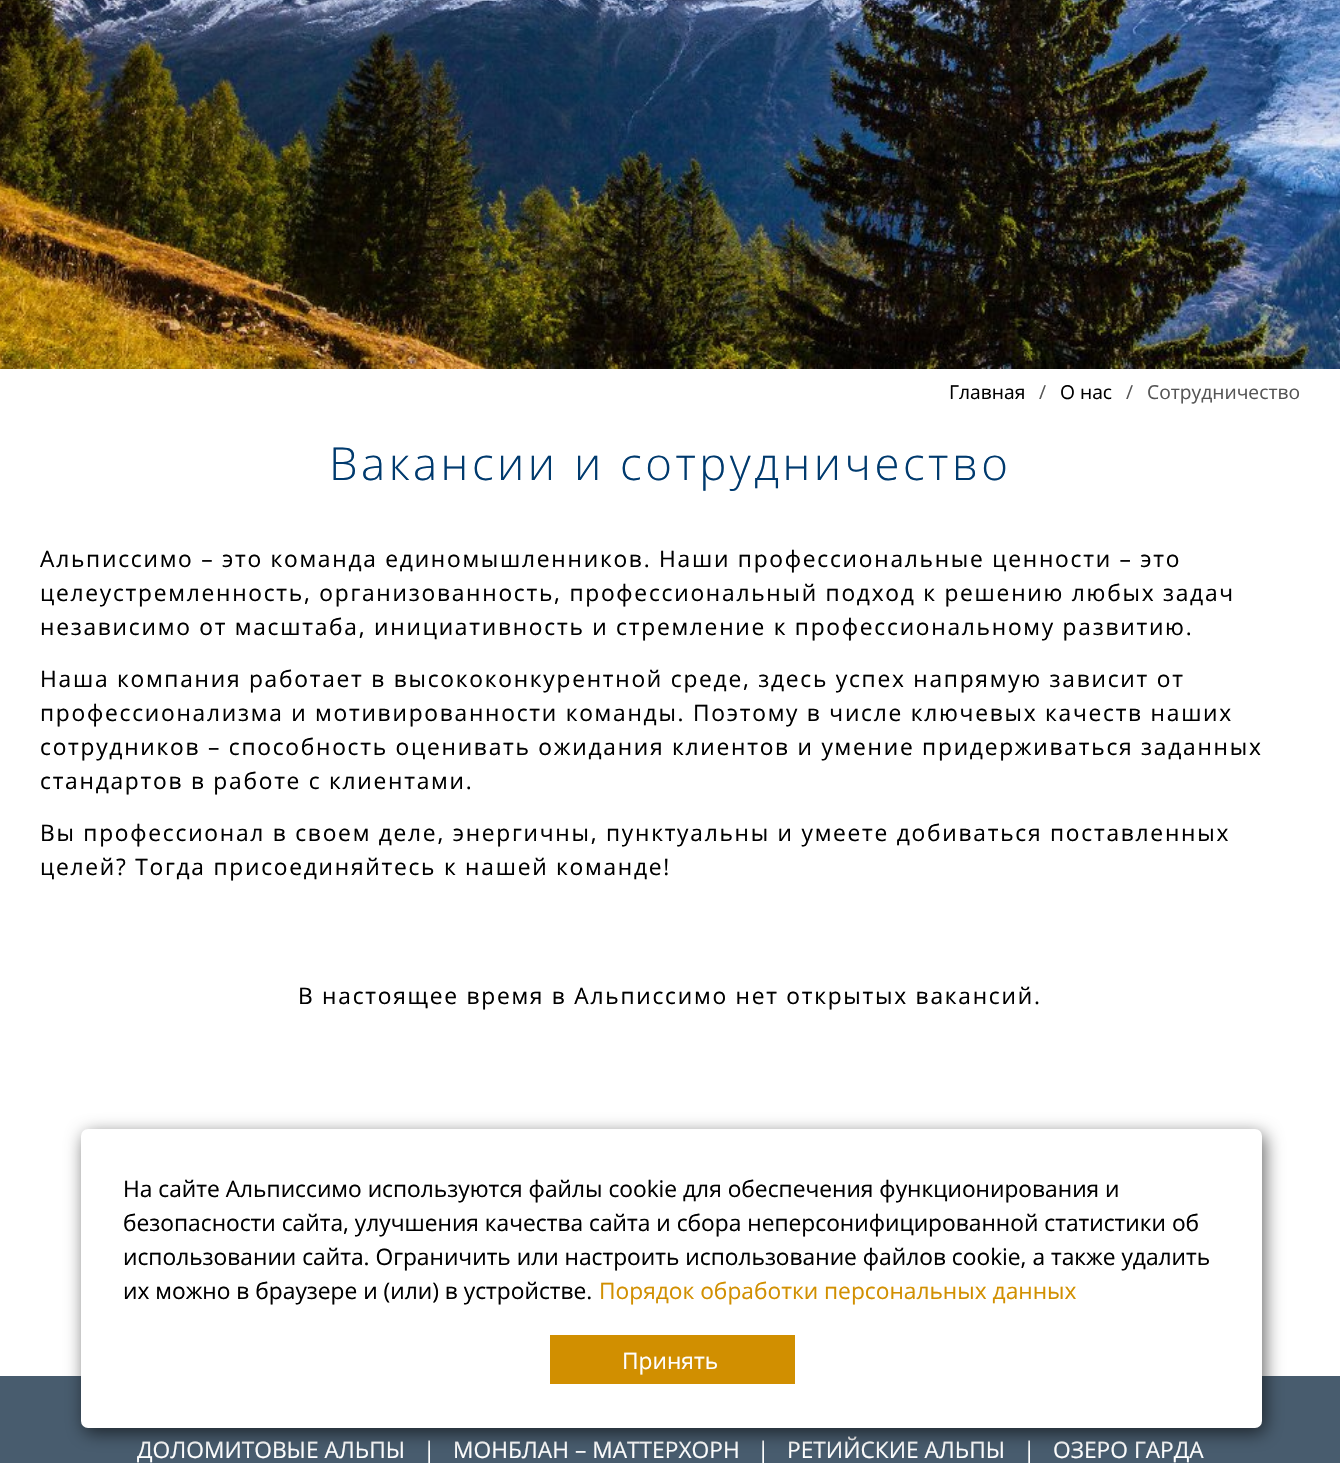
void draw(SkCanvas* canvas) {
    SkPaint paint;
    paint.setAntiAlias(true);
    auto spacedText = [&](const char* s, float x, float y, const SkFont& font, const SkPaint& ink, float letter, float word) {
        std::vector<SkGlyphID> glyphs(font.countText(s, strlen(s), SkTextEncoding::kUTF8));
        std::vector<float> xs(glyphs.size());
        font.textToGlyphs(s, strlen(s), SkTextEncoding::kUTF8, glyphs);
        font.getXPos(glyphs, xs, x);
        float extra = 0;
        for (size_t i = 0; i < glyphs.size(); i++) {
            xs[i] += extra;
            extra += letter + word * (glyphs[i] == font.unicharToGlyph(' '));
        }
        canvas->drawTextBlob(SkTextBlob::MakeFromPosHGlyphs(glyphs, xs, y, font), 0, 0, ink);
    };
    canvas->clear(0xFFFFFFFF);
    canvas->drawImageRect(SkImages::DeferredFromEncodedData(SkData::MakeFromFileName("img1.png")), SkRect::MakeXYWH(0, 0, 1340, 369), SkSamplingOptions());
    SkFont font1(fontMgr->matchFamilyStyle("Open Sans", SkFontStyle::Normal()), 19.25f);
    font1.setSubpixel(true);
    paint.setColor(0xFF000000);
    canvas->drawString("Главная", 949, 399, font1, paint);
    paint.setColor(0xFF555555);
    canvas->drawString("/", 1039, 399, font1, paint);
    paint.setColor(0xFF000000);
    canvas->drawString("О нас", 1060, 399, font1, paint);
    paint.setColor(0xFF555555);
    canvas->drawString("/", 1126, 399, font1, paint);
    canvas->drawString("Сотрудничество", 1147, 399, font1, paint);
    SkFont font2(fontMgr->matchFamilyStyle("Open Sans", SkFontStyle(300, SkFontStyle::kNormal_Width, SkFontStyle::kUpright_Slant)), 45.5f);
    font2.setSubpixel(true);
    paint.setColor(0xFF003A6E);
    spacedText("Вакансии и сотрудничество", 329, 480, font2, paint, 3.5f, 0);
    SkFont font3(fontMgr->matchFamilyStyle("Open Sans", SkFontStyle::Normal()), 22.75f);
    font3.setSubpixel(true);
    paint.setColor(0xFF000000);
    spacedText("Альписсимо – это команда единомышленников. Наши профессиональные ценности – это", 40, 567, font3, paint, 1.75f, 0);
    spacedText("целеустремленность, организованность, профессиональный подход к решению любых задач", 40, 601, font3, paint, 1.75f, 0);
    spacedText("независимо от масштаба, инициативность и стремление к профессиональному развитию.", 40, 635, font3, paint, 1.75f, 0);
    spacedText("Наша компания работает в высококонкурентной среде, здесь успех напрямую зависит от", 40, 687, font3, paint, 1.75f, 0);
    spacedText("профессионализма и мотивированности команды. Поэтому в числе ключевых качеств наших", 40, 721, font3, paint, 1.75f, 0);
    spacedText("сотрудников – способность оценивать ожидания клиентов и умение придерживаться заданных", 40, 755, font3, paint, 1.75f, 0);
    spacedText("стандартов в работе с клиентами.", 40, 789, font3, paint, 1.75f, 0);
    spacedText("Вы профессионал в своем деле, энергичны, пунктуальны и умеете добиваться поставленных", 40, 841, font3, paint, 1.75f, 0);
    spacedText("целей? Тогда присоединяйтесь к нашей команде!", 40, 875, font3, paint, 1.75f, 0);
    spacedText("В настоящее время в Альписсимо нет открытых вакансий.", 298, 1004, font3, paint, 1.75f, 0);
    paint.setColor(0xFF485C6E);
    canvas->drawRect(SkRect::MakeXYWH(0, 1376, 1340, 87), paint);
    paint.setColor(0xFFFFFFFF);
    canvas->drawString("ДОЛОМИТОВЫЕ АЛЬПЫ", 137, 1458, font3, paint);
    canvas->drawString("|", 423, 1458, font3, paint);
    canvas->drawString("МОНБЛАН – МАТТЕРХОРН", 453, 1458, font3, paint);
    canvas->drawString("|", 757, 1458, font3, paint);
    canvas->drawString("РЕТИЙСКИЕ АЛЬПЫ", 787, 1458, font3, paint);
    canvas->drawString("|", 1023, 1458, font3, paint);
    canvas->drawString("ОЗЕРО ГАРДА", 1053, 1458, font3, paint);
    paint.setColor(0x99000000);
    paint.setMaskFilter(SkMaskFilter::MakeBlur(kNormal_SkBlurStyle, 9));
    canvas->drawRoundRect(SkRect::MakeXYWH(84, 1134, 1181, 299), 7, 7, paint);
    paint.setMaskFilter(nullptr);
    paint.setColor(0xFFFFFFFF);
    canvas->drawRoundRect(SkRect::MakeXYWH(81, 1129, 1181, 299), 7, 7, paint);
    paint.setColor(0xFF000000);
    canvas->drawString("На сайте Альписсимо используются файлы cookie для обеспечения функционирования и", 123, 1197, font3, paint);
    canvas->drawString("безопасности сайта, улучшения качества сайта и сбора неперсонифицированной статистики об", 123, 1231, font3, paint);
    canvas->drawString("использовании сайта. Ограничить или настроить использование файлов cookie, а также удалить", 123, 1265, font3, paint);
    canvas->drawString("их можно в браузере и (или) в устройстве.", 123, 1299, font3, paint);
    paint.setColor(0xFFD18F00);
    canvas->drawString("Порядок обработки персональных данных", 599, 1299, font3, paint);
    canvas->drawRect(SkRect::MakeXYWH(550, 1335, 245, 49), paint);
    paint.setColor(0xFFFFFFFF);
    canvas->drawString("Принять", 622, 1369, font3, paint);
}
